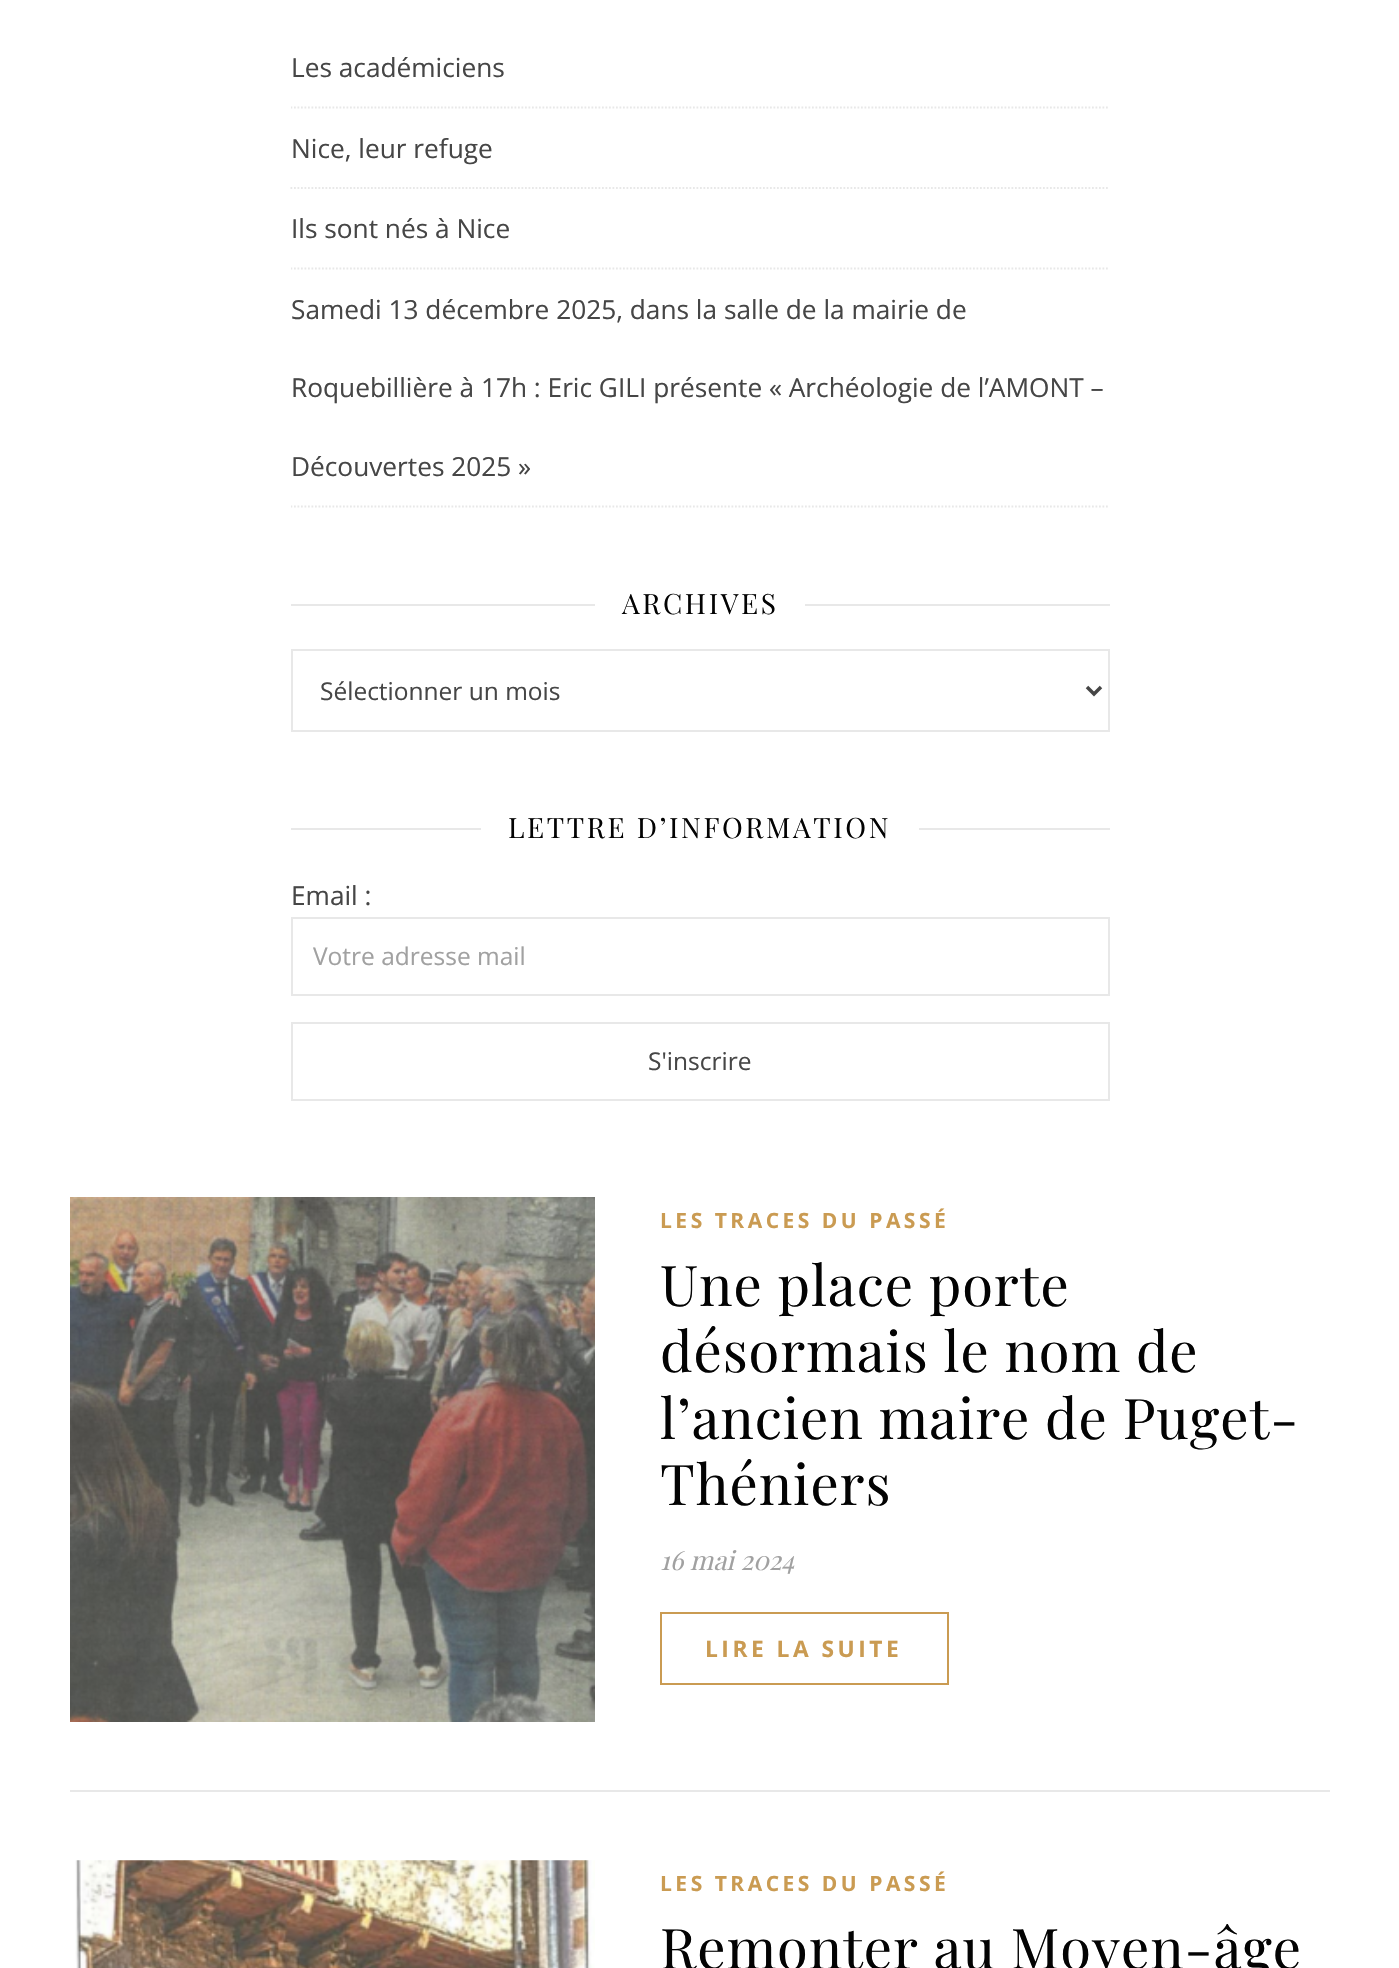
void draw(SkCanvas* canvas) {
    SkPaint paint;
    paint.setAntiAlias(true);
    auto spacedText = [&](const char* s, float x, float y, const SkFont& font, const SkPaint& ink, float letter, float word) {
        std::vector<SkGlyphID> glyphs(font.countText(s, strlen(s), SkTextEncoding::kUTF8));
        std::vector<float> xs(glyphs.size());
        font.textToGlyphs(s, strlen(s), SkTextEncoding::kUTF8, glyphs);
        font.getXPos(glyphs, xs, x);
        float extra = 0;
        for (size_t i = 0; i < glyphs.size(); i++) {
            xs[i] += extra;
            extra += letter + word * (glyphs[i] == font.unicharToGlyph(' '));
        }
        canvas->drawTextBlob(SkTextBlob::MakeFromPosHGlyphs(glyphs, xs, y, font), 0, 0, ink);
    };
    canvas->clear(0xFFFFFFFF);
    canvas->save();
    canvas->clipRect(SkRect::MakeXYWH(291, 0, 819, 508));
    paint.setStyle(SkPaint::kStroke_Style);
    paint.setStrokeWidth(1.8f);
    paint.setColor(0xFFE8E8E8);
    paint.setPathEffect(SkDashPathEffect::Make({{1.75f, 1.75f}}, 0));
    canvas->drawPath(SkPathBuilder().moveTo(290.5f, 107.5f).lineTo(1109.5f, 107.5f).detach(), paint);
    paint.setPathEffect(nullptr);
    canvas->restore();
    SkFont font1(fontMgr->matchFamilyStyle("Open Sans", SkFontStyle::Normal()), 26.25f);
    font1.setSubpixel(true);
    paint.setStyle(SkPaint::kFill_Style);
    paint.setColor(0xFF464646);
    canvas->drawString("Les académiciens", 291, 77, font1, paint);
    paint.setStyle(SkPaint::kStroke_Style);
    paint.setColor(0xFFE8E8E8);
    paint.setPathEffect(SkDashPathEffect::Make({{1.75f, 1.75f}}, 0));
    canvas->drawPath(SkPathBuilder().moveTo(290.5f, 188).lineTo(1109.5f, 188).detach(), paint);
    paint.setPathEffect(nullptr);
    paint.setStyle(SkPaint::kFill_Style);
    paint.setColor(0xFF464646);
    canvas->drawString("Nice, leur refuge", 291, 158, font1, paint);
    canvas->save();
    canvas->clipRect(SkRect::MakeXYWH(291, 0, 819, 508));
    paint.setStyle(SkPaint::kStroke_Style);
    paint.setColor(0xFFE8E8E8);
    paint.setPathEffect(SkDashPathEffect::Make({{1.75f, 1.75f}}, 0));
    canvas->drawPath(SkPathBuilder().moveTo(290.5f, 268.5f).lineTo(1109.5f, 268.5f).detach(), paint);
    paint.setPathEffect(nullptr);
    canvas->restore();
    paint.setStyle(SkPaint::kFill_Style);
    paint.setColor(0xFF464646);
    canvas->drawString("Ils sont nés à Nice", 291, 238, font1, paint);
    canvas->save();
    canvas->clipRect(SkRect::MakeXYWH(291, 0, 819, 508));
    paint.setStyle(SkPaint::kStroke_Style);
    paint.setColor(0xFFE8E8E8);
    paint.setPathEffect(SkDashPathEffect::Make({{1.75f, 1.75f}}, 0));
    canvas->drawPath(SkPathBuilder().moveTo(290.5f, 506.5f).lineTo(1109.5f, 506.5f).detach(), paint);
    paint.setPathEffect(nullptr);
    canvas->restore();
    paint.setStyle(SkPaint::kFill_Style);
    paint.setColor(0xFF464646);
    canvas->drawString("Samedi 13 décembre 2025, dans la salle de la mairie de", 291, 319, font1, paint);
    canvas->drawString("Roquebillière à 17h : Eric GILI présente « Archéologie de l’AMONT –", 291, 397, font1, paint);
    canvas->drawString("Découvertes 2025 »", 291, 476, font1, paint);
    paint.setColor(0xFFE8E8E8);
    canvas->drawRect(SkRect::MakeXYWH(291, 604, 304, 2), paint);
    SkFont font2(fontMgr->matchFamilyStyle("Playfair Display", SkFontStyle::Normal()), 28);
    font2.setSubpixel(true);
    paint.setColor(0xFF030303);
    spacedText("ARCHIVES", 622, 614, font2, paint, 2.6f, 0);
    paint.setColor(0xFFE8E8E8);
    canvas->drawRect(SkRect::MakeXYWH(805, 604, 305, 2), paint);
    paint.setStyle(SkPaint::kStroke_Style);
    paint.setStrokeWidth(2);
    canvas->drawRect(SkRect::MakeXYWH(292, 650, 817, 81), paint);
    paint.setStrokeWidth(3.5f);
    paint.setColor(0xFF464646);
    canvas->drawPath(SkPathBuilder().moveTo(1087, 687).lineTo(1094, 694).lineTo(1101, 687).detach(), paint);
    SkFont font3(fontMgr->matchFamilyStyle("Open Sans", SkFontStyle::Normal()), 24.5f);
    font3.setSubpixel(true);
    paint.setStyle(SkPaint::kFill_Style);
    canvas->drawString("Sélectionner un mois", 320, 700, font3, paint);
    paint.setColor(0xFFE8E8E8);
    canvas->drawRect(SkRect::MakeXYWH(291, 828, 190, 2), paint);
    paint.setColor(0xFF030303);
    spacedText("LETTRE D’INFORMATION", 508, 838, font2, paint, 2.6f, 0);
    paint.setColor(0xFFE8E8E8);
    canvas->drawRect(SkRect::MakeXYWH(919, 828, 191, 2), paint);
    paint.setColor(0xFF464646);
    canvas->drawString("Email :", 291, 905, font1, paint);
    paint.setStyle(SkPaint::kStroke_Style);
    paint.setStrokeWidth(2);
    paint.setColor(0xFFE8E8E8);
    canvas->drawRect(SkRect::MakeXYWH(292, 918, 817, 77), paint);
    paint.setStyle(SkPaint::kFill_Style);
    paint.setColor(0xFFA1A1A1);
    canvas->drawString("Votre adresse mail", 313, 965, font3, paint);
    paint.setStyle(SkPaint::kStroke_Style);
    paint.setColor(0xFFE8E8E8);
    canvas->drawRect(SkRect::MakeXYWH(292, 1023, 817, 77), paint);
    paint.setStyle(SkPaint::kFill_Style);
    paint.setColor(0xFF464646);
    canvas->drawString("S'inscrire", 648, 1070, font3, paint);
    paint.setColor(0xFFE8E8E8);
    canvas->drawRect(SkRect::MakeXYWH(70, 1790, 1260, 2), paint);
    canvas->drawImageRect(SkImages::DeferredFromEncodedData(SkData::MakeFromFileName("img1.png")), SkRect::MakeXYWH(70, 1197, 525, 525), SkSamplingOptions());
    SkFont font4(fontMgr->matchFamilyStyle("Open Sans", SkFontStyle::Bold()), 21);
    font4.setSubpixel(true);
    paint.setColor(0xFFCA9B52);
    spacedText("LES TRACES DU PASSÉ", 660, 1228, font4, paint, 3.5f, 0);
    SkFont font5(fontMgr->matchFamilyStyle("Playfair Display", SkFontStyle::Normal()), 56);
    font5.setSubpixel(true);
    paint.setColor(0xFF030303);
    spacedText("Une place porte", 660, 1306, font5, paint, 0.9f, 0);
    spacedText("désormais le nom de", 660, 1372, font5, paint, 0.9f, 0);
    spacedText("l’ancien maire de Puget-", 660, 1439, font5, paint, 0.9f, 0);
    spacedText("Théniers", 660, 1505, font5, paint, 0.9f, 0);
    SkFont font6(fontMgr->matchFamilyStyle("Playfair Display", SkFontStyle::Italic()), 26.25f);
    font6.setSubpixel(true);
    paint.setColor(0xFFA1A1A1);
    canvas->drawString("16 mai 2024", 660, 1570, font6, paint);
    paint.setStyle(SkPaint::kStroke_Style);
    paint.setColor(0xFFCA9B52);
    canvas->drawRect(SkRect::MakeXYWH(661, 1613, 287, 71), paint);
    SkFont font7(fontMgr->matchFamilyStyle("Open Sans", SkFontStyle::Bold()), 22.75f);
    font7.setSubpixel(true);
    paint.setStyle(SkPaint::kFill_Style);
    spacedText("LIRE LA SUITE", 705, 1657, font7, paint, 3.5f, 0);
    canvas->drawImageRect(SkImages::DeferredFromEncodedData(SkData::MakeFromFileName("img2.png")), SkRect::MakeXYWH(75, 1860, 520, 108), SkSamplingOptions());
    spacedText("LES TRACES DU PASSÉ", 660, 1891, font4, paint, 3.5f, 0);
    paint.setColor(0xFF030303);
    spacedText("Remonter au Moyen-âge", 660, 1969, font5, paint, 0.9f, 0);
}
